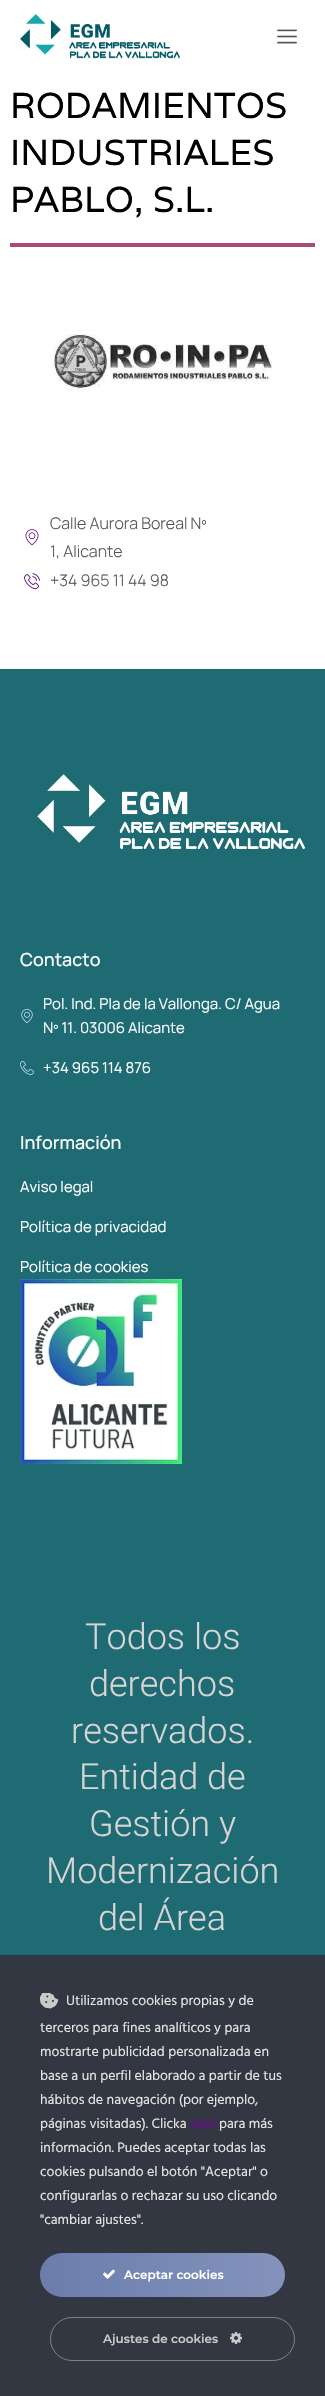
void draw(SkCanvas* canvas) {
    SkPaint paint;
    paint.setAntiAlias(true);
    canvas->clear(0xFFFFFFFF);
    canvas->drawImageRect(SkImages::DeferredFromEncodedData(SkData::MakeFromFileName("img1.png")), SkRect::MakeXYWH(20, 14, 160, 45), SkSamplingOptions());
    canvas->drawImageRect(SkImages::DeferredFromEncodedData(SkData::MakeFromFileName("img2.png")), SkRect::MakeXYWH(277, 29, 20, 15), SkSamplingOptions());
    SkFont font1(fontMgr->matchFamilyStyle("Varela", SkFontStyle::Normal()), 36);
    font1.setSubpixel(true);
    paint.setColor(0xFF000000);
    canvas->drawString("RODAMIENTOS", 10, 118, font1, paint);
    canvas->drawString("INDUSTRIALES", 10, 165, font1, paint);
    canvas->drawString("PABLO, S.L.", 10, 212, font1, paint);
    paint.setColor(0xFFA94A7C);
    canvas->drawRect(SkRect::MakeXYWH(10, 243, 305, 4), paint);
    canvas->drawImageRect(SkImages::DeferredFromEncodedData(SkData::MakeFromFileName("img3.png")), SkRect::MakeXYWH(53, 334, 219, 58), SkSamplingOptions());
    canvas->drawImageRect(SkImages::DeferredFromEncodedData(SkData::MakeFromFileName("img4.png")), SkRect::MakeXYWH(25, 529, 14, 17), SkSamplingOptions());
    SkFont font2(fontMgr->matchFamilyStyle("Manrope", SkFontStyle(300, SkFontStyle::kNormal_Width, SkFontStyle::kUpright_Slant)), 16);
    font2.setSubpixel(true);
    paint.setColor(0xFF555555);
    canvas->drawString("Calle Aurora Boreal Nº", 50, 529, font2, paint);
    canvas->drawString("1, Alicante", 50, 557, font2, paint);
    canvas->drawImageRect(SkImages::DeferredFromEncodedData(SkData::MakeFromFileName("img5.png")), SkRect::MakeXYWH(24, 573, 16, 17), SkSamplingOptions());
    canvas->drawString("+34 965 11 44 98", 50, 586, font2, paint);
    paint.setColor(0xFF1E6B74);
    canvas->drawRect(SkRect::MakeXYWH(0, 669, 325, 1286), paint);
    canvas->drawImageRect(SkImages::DeferredFromEncodedData(SkData::MakeFromFileName("img6.png")), SkRect::MakeXYWH(37, 774, 268, 75), SkSamplingOptions());
    SkFont font3(fontMgr->matchFamilyStyle("Manrope", SkFontStyle(500, SkFontStyle::kNormal_Width, SkFontStyle::kUpright_Slant)), 18);
    font3.setSubpixel(true);
    paint.setColor(0xFFFFFFFF);
    canvas->drawString("Contacto", 20, 966, font3, paint);
    canvas->drawImageRect(SkImages::DeferredFromEncodedData(SkData::MakeFromFileName("img7.png")), SkRect::MakeXYWH(21, 1009, 12, 14), SkSamplingOptions());
    SkFont font4(fontMgr->matchFamilyStyle("Manrope", SkFontStyle::Normal()), 15);
    font4.setSubpixel(true);
    canvas->drawString("Pol. Ind. Pla de la Vallonga. C/ Agua", 43, 1009, font4, paint);
    canvas->drawString("Nº 11. 03006 Alicante", 43, 1033, font4, paint);
    canvas->drawImageRect(SkImages::DeferredFromEncodedData(SkData::MakeFromFileName("img8.png")), SkRect::MakeXYWH(20, 1060, 14, 15), SkSamplingOptions());
    canvas->drawString("+34 965 114 876", 43, 1073, font4, paint);
    canvas->drawString("Información", 20, 1149, font3, paint);
    canvas->drawString("Aviso legal", 20, 1192, font4, paint);
    canvas->drawString("Política de privacidad", 20, 1232, font4, paint);
    canvas->drawString("Política de cookies", 20, 1272, font4, paint);
    canvas->drawImageRect(SkImages::DeferredFromEncodedData(SkData::MakeFromFileName("img9.png")), SkRect::MakeXYWH(20, 1279, 162, 185), SkSamplingOptions());
    SkFont font5(fontMgr->matchFamilyStyle("Roboto", SkFontStyle(300, SkFontStyle::kNormal_Width, SkFontStyle::kUpright_Slant)), 36);
    font5.setSubpixel(true);
    paint.setColor(0xFFD7D4D4);
    canvas->drawString("Todos los", 85, 1649, font5, paint);
    canvas->drawString("derechos", 89, 1696, font5, paint);
    canvas->drawString("reservados.", 71, 1743, font5, paint);
    canvas->drawString("Entidad de", 79, 1789, font5, paint);
    canvas->drawString("Gestión y", 89, 1836, font5, paint);
    canvas->drawString("Modernización", 46, 1883, font5, paint);
    canvas->drawString("del Área", 98, 1930, font5, paint);
    paint.setColor(0xFF323742);
    canvas->drawRect(SkRect::MakeXYWH(0, 1955, 325, 441), paint);
    canvas->drawImageRect(SkImages::DeferredFromEncodedData(SkData::MakeFromFileName("img10.png")), SkRect::MakeXYWH(40, 1993, 19, 16), SkSamplingOptions());
    SkFont font6(fontMgr->matchFamilyStyle("Hind", SkFontStyle::Normal()), 14);
    font6.setSubpixel(true);
    paint.setColor(0xFFE5E5E5);
    canvas->drawString("Utilizamos cookies propias y de", 66, 2005, font6, paint);
    canvas->drawString("terceros para fines analíticos y para", 40, 2032, font6, paint);
    canvas->drawString("mostrarte publicidad personalizada en", 40, 2056, font6, paint);
    canvas->drawString("base a un perfil elaborado a partir de tus", 40, 2080, font6, paint);
    canvas->drawString("hábitos de navegación (por ejemplo,", 40, 2104, font6, paint);
    canvas->drawString("páginas visitadas). Clicka", 40, 2128, font6, paint);
    SkFont font7(fontMgr->matchFamilyStyle("Hind", SkFontStyle::Bold()), 14);
    font7.setSubpixel(true);
    paint.setColor(0xFF601282);
    canvas->drawString("aquí", 190, 2128, font7, paint);
    paint.setColor(0xFFE5E5E5);
    canvas->drawString("para más", 219, 2128, font6, paint);
    canvas->drawString("información. Puedes aceptar todas las", 40, 2152, font6, paint);
    canvas->drawString("cookies pulsando el botón \"Aceptar\" o", 40, 2176, font6, paint);
    canvas->drawString("configurarlas o rechazar su uso clicando", 40, 2200, font6, paint);
    canvas->drawString("\"cambiar ajustes\".", 40, 2224, font6, paint);
    {
        const SkColor colors[] = {0xFF6B7DAC, 0xFF8393BC};
        const float stops[] = {0, 1};
        const SkPoint ends[] = {{40, 2275}, {285, 2275}};
        paint.setShader(SkGradientShader::MakeLinear(ends, colors, stops, 2, SkTileMode::kClamp));
        paint.setAlpha(255);
    }
    canvas->drawRoundRect(SkRect::MakeXYWH(40, 2253, 245, 44), 22, 22, paint);
    canvas->drawImageRect(SkImages::DeferredFromEncodedData(SkData::MakeFromFileName("img11.png")), SkRect::MakeXYWH(103, 2269, 12, 10), SkSamplingOptions());
    SkFont font8(fontMgr->matchFamilyStyle("Montserrat", SkFontStyle(600, SkFontStyle::kNormal_Width, SkFontStyle::kUpright_Slant)), 12);
    font8.setSubpixel(true);
    paint.setShader(nullptr);
    paint.setColor(0xFFFFFFFF);
    canvas->drawString("Aceptar cookies", 124, 2279, font8, paint);
    paint.setStyle(SkPaint::kStroke_Style);
    paint.setStrokeWidth(1);
    paint.setColor(0xFF808181);
    canvas->drawRoundRect(SkRect::MakeXYWH(50.5f, 2317.5f, 244, 43), 21.5f, 21.5f, paint);
    paint.setStyle(SkPaint::kFill_Style);
    paint.setColor(0xFFCACACA);
    canvas->drawString("Ajustes de cookies", 103, 2343, font8, paint);
    canvas->drawImageRect(SkImages::DeferredFromEncodedData(SkData::MakeFromFileName("img12.png")), SkRect::MakeXYWH(230, 2332, 12, 12), SkSamplingOptions());
}
